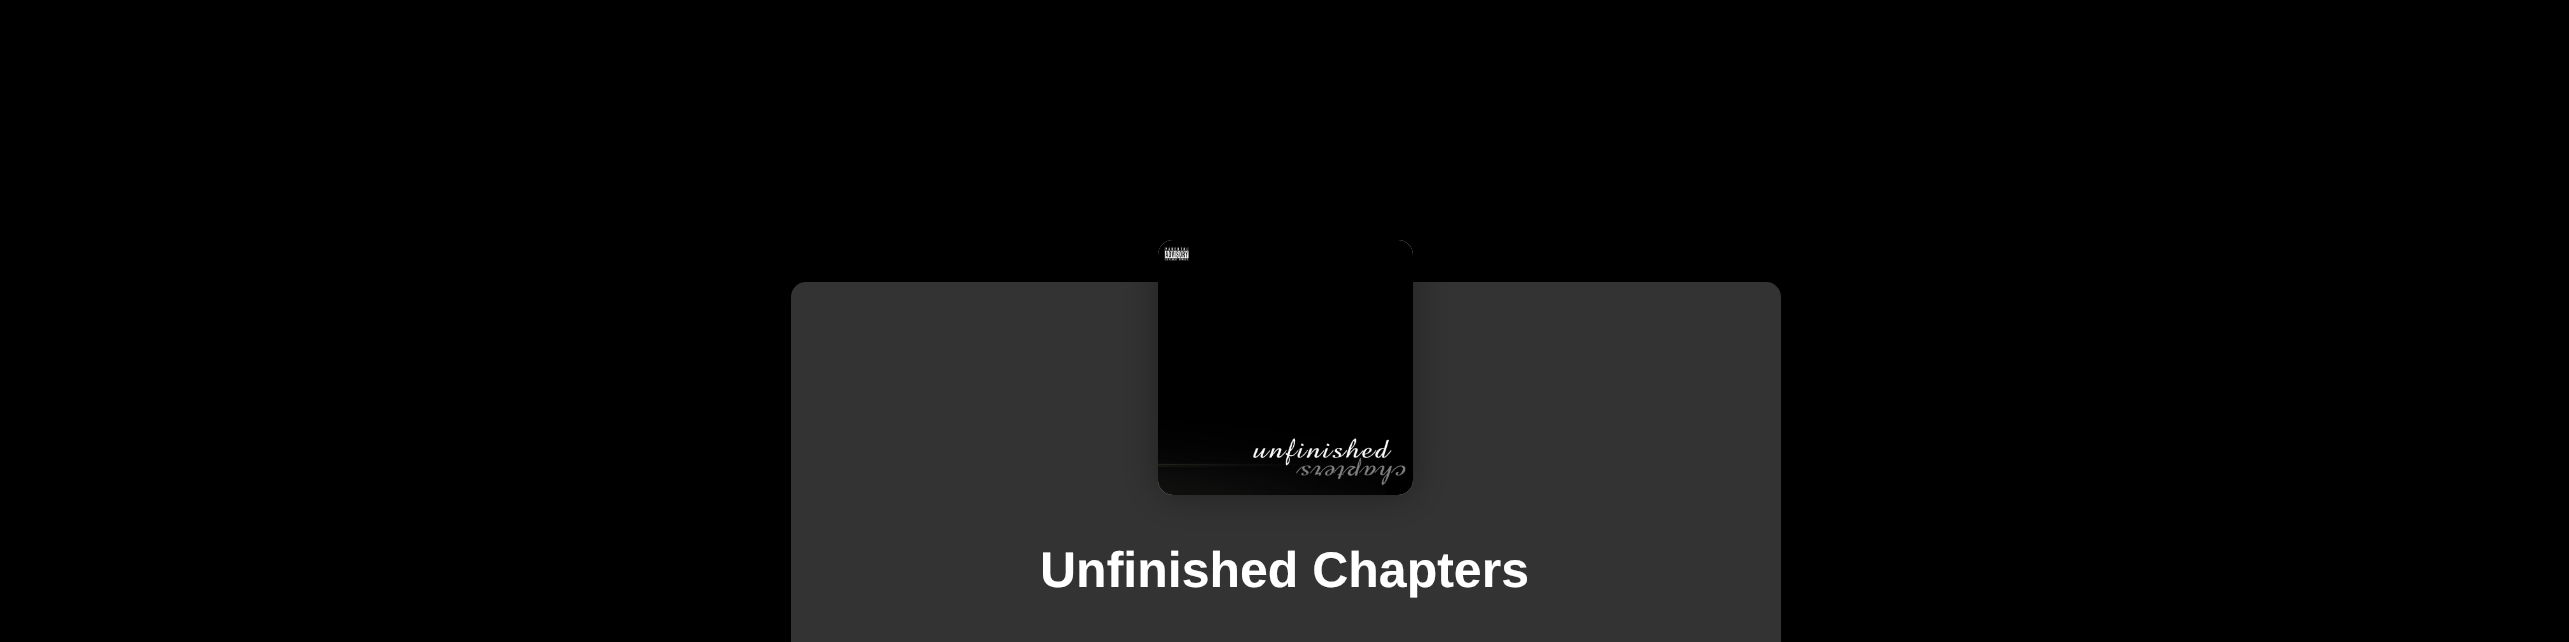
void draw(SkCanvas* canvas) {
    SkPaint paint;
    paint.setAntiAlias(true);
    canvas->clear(0xFF000000);
    paint.setColor(0xFF333333);
    canvas->drawRoundRect(SkRect::MakeXYWH(791, 282, 990, 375), 15, 15, paint);
    paint.setColor(0x59000000);
    paint.setMaskFilter(SkMaskFilter::MakeBlur(kNormal_SkBlurStyle, 19));
    canvas->drawRoundRect(SkRect::MakeXYWH(1158, 240, 255, 255), 15, 15, paint);
    paint.setMaskFilter(nullptr);
    paint.setColor(0xFFCCCCCC);
    canvas->drawRoundRect(SkRect::MakeXYWH(1158, 240, 255, 255), 15, 15, paint);
    canvas->drawImageRect(SkImages::DeferredFromEncodedData(SkData::MakeFromFileName("img1.png")), SkRect::MakeXYWH(1158, 240, 255, 255), SkSamplingOptions());
    SkFont font1(fontMgr->matchFamilyStyle("Liberation Sans", SkFontStyle::Bold()), 50);
    font1.setSubpixel(true);
    paint.setColor(0xFFFFFFFF);
    canvas->drawString("Unfinished Chapters", 1040, 587, font1, paint);
}
